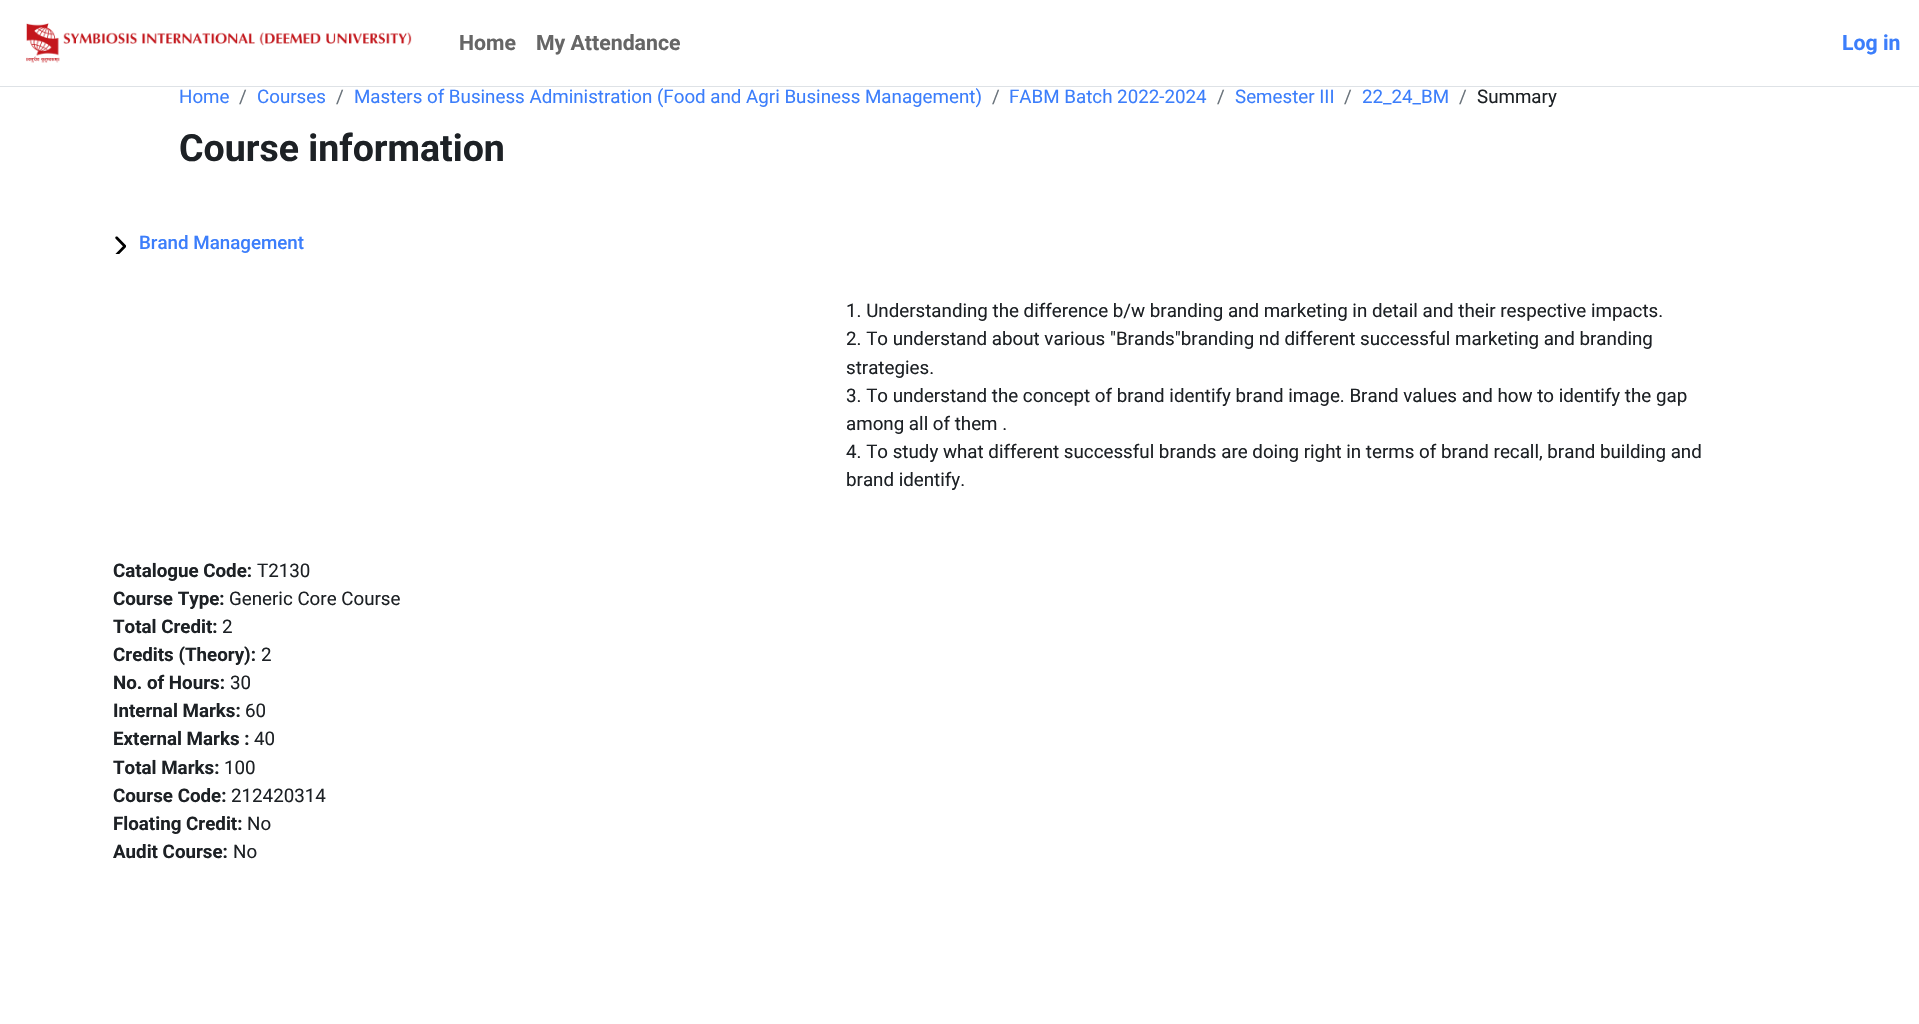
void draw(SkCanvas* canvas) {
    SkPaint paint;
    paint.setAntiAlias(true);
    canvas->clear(0xFFFFFFFF);
    paint.setColor(0xFFDEE2E6);
    canvas->drawRect(SkRect::MakeXYWH(0, 86, 1919, 1), paint);
    canvas->drawImageRect(SkImages::DeferredFromEncodedData(SkData::MakeFromFileName("img1.png")), SkRect::MakeXYWH(26, 23, 386, 40), SkSamplingOptions());
    SkFont font1(fontMgr->matchFamilyStyle("Roboto", SkFontStyle::Bold()), 21.25f);
    font1.setSubpixel(true);
    paint.setColor(0xFF666666);
    canvas->drawString("Home", 459, 50, font1, paint);
    canvas->drawString("My Attendance", 536, 50, font1, paint);
    paint.setColor(0xFF3C7EFB);
    canvas->drawString("Log in", 1842, 50, font1, paint);
    SkFont font2(fontMgr->matchFamilyStyle("Roboto", SkFontStyle::Normal()), 18.75f);
    font2.setSubpixel(true);
    canvas->drawString("Home", 179, 103, font2, paint);
    paint.setColor(0xFF6A737B);
    canvas->drawString("/", 239, 103, font2, paint);
    paint.setColor(0xFF3C7EFB);
    canvas->drawString("Courses", 257, 103, font2, paint);
    paint.setColor(0xFF6A737B);
    canvas->drawString("/", 336, 103, font2, paint);
    paint.setColor(0xFF3C7EFB);
    canvas->drawString("Masters of Business Administration (Food and Agri Business Management)", 354, 103, font2, paint);
    paint.setColor(0xFF6A737B);
    canvas->drawString("/", 992, 103, font2, paint);
    paint.setColor(0xFF3C7EFB);
    canvas->drawString("FABM Batch 2022-2024", 1009, 103, font2, paint);
    paint.setColor(0xFF6A737B);
    canvas->drawString("/", 1217, 103, font2, paint);
    paint.setColor(0xFF3C7EFB);
    canvas->drawString("Semester III", 1235, 103, font2, paint);
    paint.setColor(0xFF6A737B);
    canvas->drawString("/", 1344, 103, font2, paint);
    paint.setColor(0xFF3C7EFB);
    canvas->drawString("22_24_BM", 1362, 103, font2, paint);
    paint.setColor(0xFF6A737B);
    canvas->drawString("/", 1459, 103, font2, paint);
    paint.setColor(0xFF1D2125);
    canvas->drawString("Summary", 1477, 103, font2, paint);
    SkFont font3(fontMgr->matchFamilyStyle("Roboto", SkFontStyle::Bold()), 37.5f);
    font3.setSubpixel(true);
    canvas->drawString("Course information", 179, 161, font3, paint);
    canvas->drawImageRect(SkImages::DeferredFromEncodedData(SkData::MakeFromFileName("img2.png")), SkRect::MakeXYWH(115, 236, 11, 18), SkSamplingOptions());
    SkFont font4(fontMgr->matchFamilyStyle("Roboto", SkFontStyle(500, SkFontStyle::kNormal_Width, SkFontStyle::kUpright_Slant)), 18.75f);
    font4.setSubpixel(true);
    paint.setColor(0xFF3C7EFB);
    canvas->drawString("Brand Management", 139, 249, font4, paint);
    paint.setColor(0xFF1D2125);
    canvas->drawString("1. Understanding the difference b/w branding and marketing in detail and their respective impacts.", 846, 317, font2, paint);
    canvas->drawString("2. To understand about various \"Brands\"branding nd different successful marketing and branding", 846, 345, font2, paint);
    canvas->drawString("strategies.", 846, 374, font2, paint);
    canvas->drawString("3. To understand the concept of brand identify brand image. Brand values and how to identify the gap", 846, 402, font2, paint);
    canvas->drawString("among all of them .", 846, 430, font2, paint);
    canvas->drawString("4. To study what different successful brands are doing right in terms of brand recall, brand building and", 846, 458, font2, paint);
    canvas->drawString("brand identify.", 846, 486, font2, paint);
    SkFont font5(fontMgr->matchFamilyStyle("Roboto", SkFontStyle::Bold()), 18.75f);
    font5.setSubpixel(true);
    canvas->drawString("Catalogue Code:", 113, 577, font5, paint);
    canvas->drawString("T2130", 257, 577, font2, paint);
    canvas->drawString("Course Type:", 113, 605, font5, paint);
    canvas->drawString("Generic Core Course", 229, 605, font2, paint);
    canvas->drawString("Total Credit:", 113, 633, font5, paint);
    canvas->drawString("2", 222, 633, font2, paint);
    canvas->drawString("Credits (Theory):", 113, 661, font5, paint);
    canvas->drawString("2", 261, 661, font2, paint);
    canvas->drawString("No. of Hours:", 113, 689, font5, paint);
    canvas->drawString("30", 230, 689, font2, paint);
    canvas->drawString("Internal Marks:", 113, 717, font5, paint);
    canvas->drawString("60", 245, 717, font2, paint);
    canvas->drawString("External Marks :", 113, 745, font5, paint);
    canvas->drawString("40", 254, 745, font2, paint);
    canvas->drawString("Total Marks:", 113, 774, font5, paint);
    canvas->drawString("100", 224, 774, font2, paint);
    canvas->drawString("Course Code:", 113, 802, font5, paint);
    canvas->drawString("212420314", 231, 802, font2, paint);
    canvas->drawString("Floating Credit:", 113, 830, font5, paint);
    canvas->drawString("No", 247, 830, font2, paint);
    canvas->drawString("Audit Course:", 113, 858, font5, paint);
    canvas->drawString("No", 233, 858, font2, paint);
}
